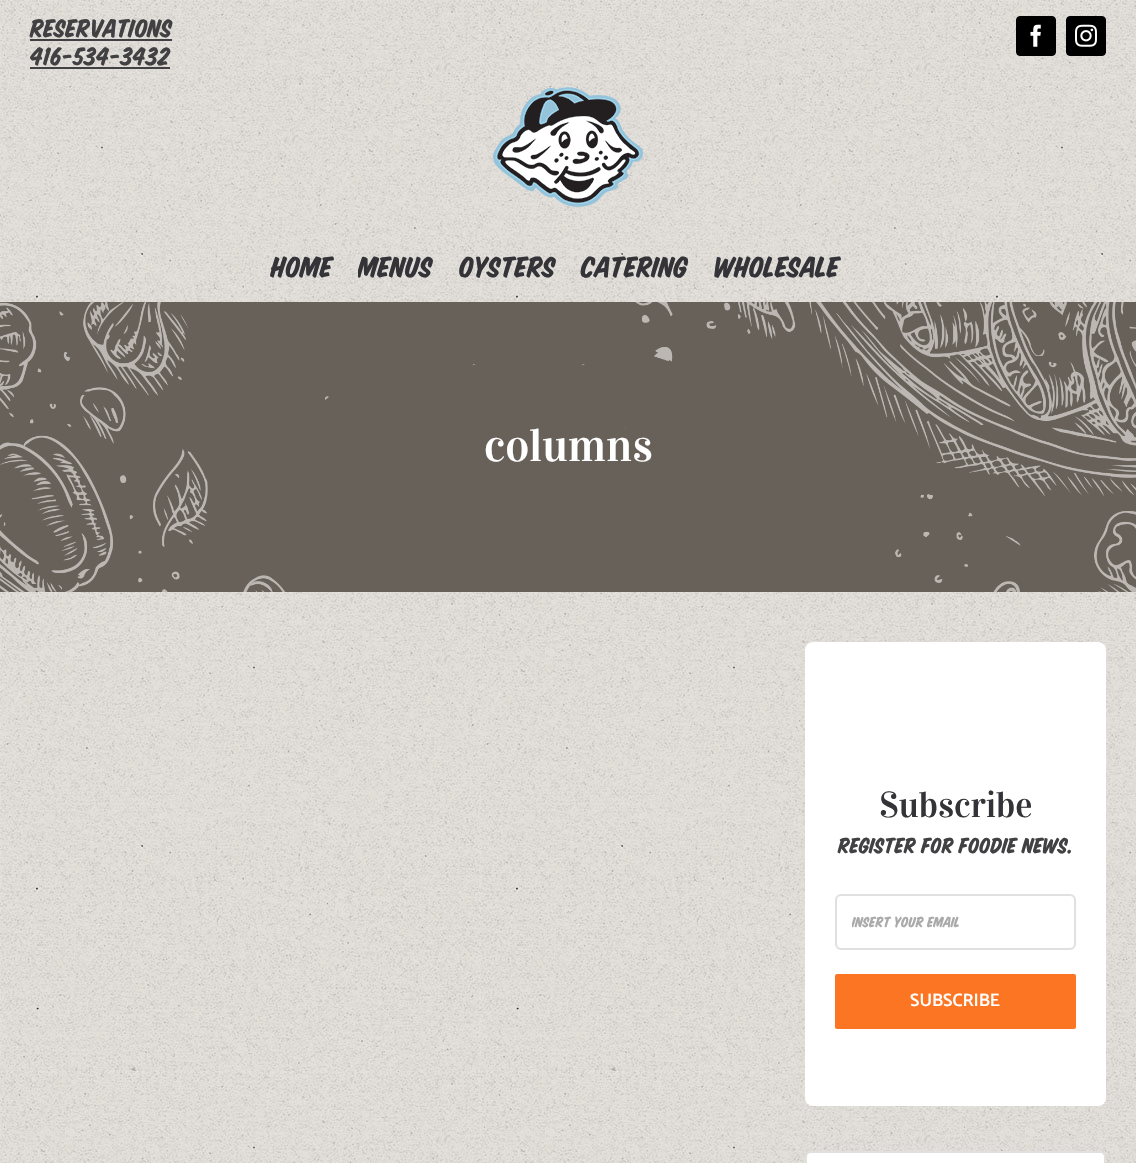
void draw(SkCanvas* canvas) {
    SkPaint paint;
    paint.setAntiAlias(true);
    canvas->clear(0xFFFFFFFF);
    canvas->drawImageRect(SkImages::DeferredFromEncodedData(SkData::MakeFromFileName("img1.png")), SkRect::MakeXYWH(0, 0, 1136, 302), SkSamplingOptions());
    SkFont font1(fontMgr->matchFamilyStyle("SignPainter", SkFontStyle::Normal()), 28);
    font1.setSubpixel(true);
    paint.setColor(0xFF414042);
    canvas->drawString("Reservations", 30, 37, font1, paint);
    canvas->drawRect(SkRect::MakeXYWH(30, 39, 142, 2), paint);
    canvas->drawString("416-534-3432", 30, 65, font1, paint);
    canvas->drawRect(SkRect::MakeXYWH(30, 67, 140, 2), paint);
    paint.setColor(0xFF000000);
    canvas->drawRoundRect(SkRect::MakeXYWH(1016.5f, 16.5f, 39, 39), 3.5f, 3.5f, paint);
    paint.setStyle(SkPaint::kStroke_Style);
    paint.setStrokeWidth(1);
    canvas->drawRoundRect(SkRect::MakeXYWH(1016.5f, 16.5f, 39, 39), 3.5f, 3.5f, paint);
    canvas->drawImageRect(SkImages::DeferredFromEncodedData(SkData::MakeFromFileName("img2.png")), SkRect::MakeXYWH(1030, 24, 11, 23), SkSamplingOptions());
    paint.setStyle(SkPaint::kFill_Style);
    canvas->drawRoundRect(SkRect::MakeXYWH(1066.5f, 16.5f, 39, 39), 3.5f, 3.5f, paint);
    paint.setStyle(SkPaint::kStroke_Style);
    canvas->drawRoundRect(SkRect::MakeXYWH(1066.5f, 16.5f, 39, 39), 3.5f, 3.5f, paint);
    canvas->drawImageRect(SkImages::DeferredFromEncodedData(SkData::MakeFromFileName("img3.png")), SkRect::MakeXYWH(1075, 24, 22, 23), SkSamplingOptions());
    canvas->drawImageRect(SkImages::DeferredFromEncodedData(SkData::MakeFromFileName("img4.png")), SkRect::MakeXYWH(0, 72, 1136, 161), SkSamplingOptions());
    canvas->drawImageRect(SkImages::DeferredFromEncodedData(SkData::MakeFromFileName("img5.png")), SkRect::MakeXYWH(493, 87, 150, 120), SkSamplingOptions());
    SkFont font2(fontMgr->matchFamilyStyle("SignPainter", SkFontStyle::Normal()), 32);
    font2.setSubpixel(true);
    paint.setStyle(SkPaint::kFill_Style);
    paint.setColor(0xFF333338);
    canvas->drawString("Home", 271, 277, font2, paint);
    canvas->save();
    canvas->clipRect(SkRect::MakeXYWH(358, 233, 101, 68));
    canvas->drawString("Menus", 358, 277, font2, paint);
    canvas->restore();
    canvas->save();
    canvas->clipRect(SkRect::MakeXYWH(459, 233, 122, 68));
    canvas->drawString("Oysters", 459, 277, font2, paint);
    canvas->restore();
    canvas->drawString("Catering", 581, 277, font2, paint);
    canvas->drawString("Wholesale", 714, 277, font2, paint);
    paint.setColor(0xFF67615A);
    canvas->drawRect(SkRect::MakeXYWH(0, 302, 1136, 290), paint);
    canvas->drawImageRect(SkImages::DeferredFromEncodedData(SkData::MakeFromFileName("img6.png")), SkRect::MakeXYWH(0, 302, 1136, 290), SkSamplingOptions());
    SkFont font3(fontMgr->matchFamilyStyle("Vidaloka", SkFontStyle::Normal()), 46);
    font3.setSubpixel(true);
    paint.setColor(0xFFFFFFFF);
    canvas->drawString("columns", 484, 461, font3, paint);
    canvas->drawImageRect(SkImages::DeferredFromEncodedData(SkData::MakeFromFileName("img7.png")), SkRect::MakeXYWH(0, 592, 1136, 571), SkSamplingOptions());
    canvas->drawRoundRect(SkRect::MakeXYWH(805, 642, 301, 464), 8, 8, paint);
    SkFont font4(fontMgr->matchFamilyStyle("Vidaloka", SkFontStyle::Normal()), 36);
    font4.setSubpixel(true);
    paint.setColor(0xFF333338);
    canvas->drawString("Subscribe", 879, 817, font4, paint);
    SkFont font5(fontMgr->matchFamilyStyle("SignPainter", SkFontStyle::Normal()), 24);
    font5.setSubpixel(true);
    paint.setColor(0xFF414042);
    canvas->drawString("Register for foodie news.", 838, 853, font5, paint);
    paint.setStyle(SkPaint::kStroke_Style);
    paint.setStrokeWidth(2);
    paint.setColor(0xFFE0E0DE);
    canvas->drawRoundRect(SkRect::MakeXYWH(836, 895, 239, 54), 5, 5, paint);
    canvas->save();
    canvas->clipRect(SkRect::MakeXYWH(852, 914, 207, 16));
    SkFont font6(fontMgr->matchFamilyStyle("SignPainter", SkFontStyle::Normal()), 16);
    font6.setSubpixel(true);
    paint.setStyle(SkPaint::kFill_Style);
    paint.setColor(0xFFAAAAAA);
    canvas->drawString("Insert your email", 852, 927, font6, paint);
    canvas->restore();
    paint.setColor(0xFFFC7523);
    canvas->drawRoundRect(SkRect::MakeXYWH(835, 974, 241, 55), 2, 2, paint);
    SkFont font7(fontMgr->matchFamilyStyle("Catamaran", SkFontStyle(600, SkFontStyle::kNormal_Width, SkFontStyle::kUpright_Slant)), 18);
    font7.setSubpixel(true);
    paint.setColor(0xFFFFFFFF);
    canvas->drawString("SUBSCRIBE", 910, 1006, font7, paint);
    canvas->drawRoundRect(SkRect::MakeXYWH(806, 1152, 299, 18), 5, 5, paint);
    paint.setStyle(SkPaint::kStroke_Style);
    paint.setColor(0xFFE0E0DE);
    canvas->drawRoundRect(SkRect::MakeXYWH(806, 1152, 299, 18), 5, 5, paint);
}
